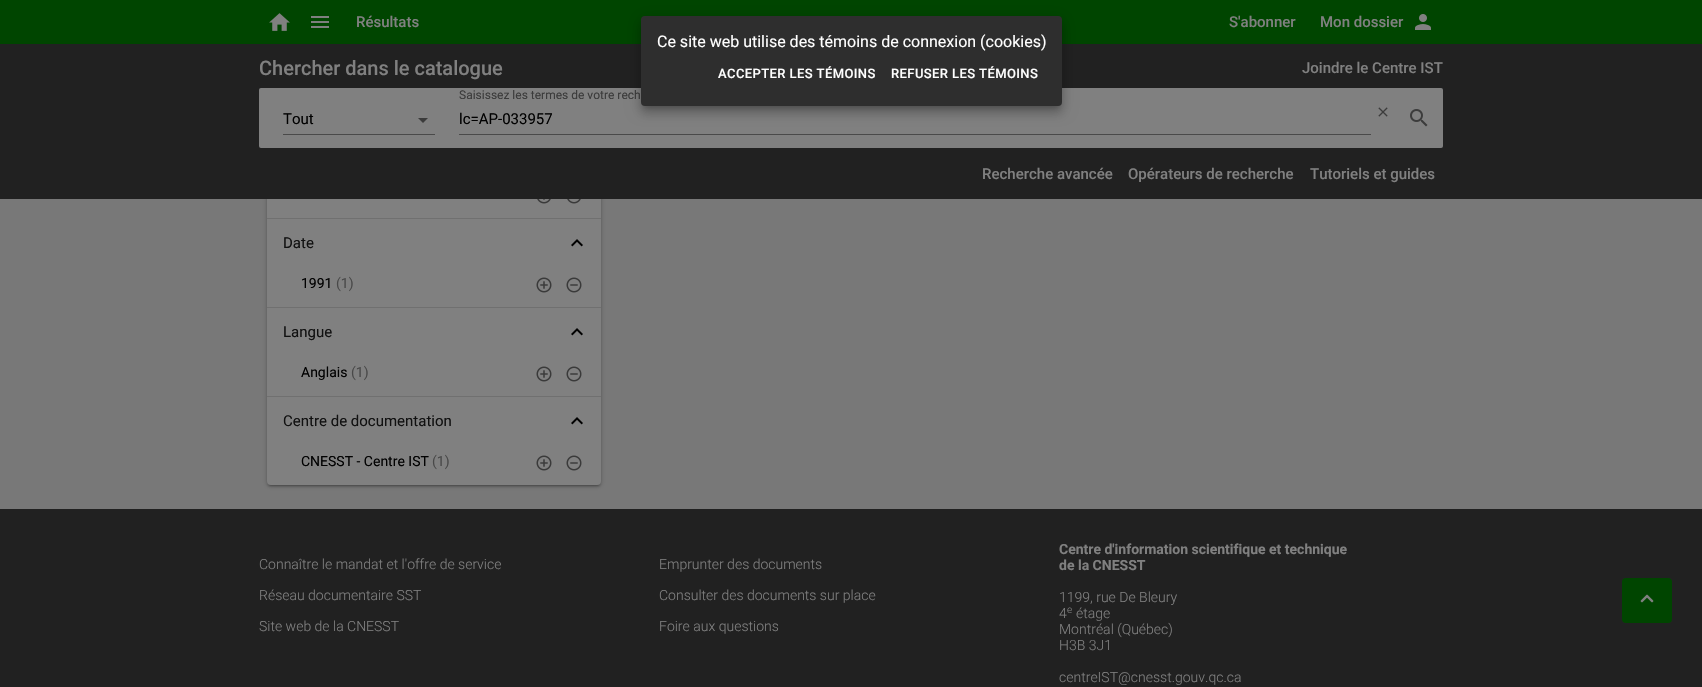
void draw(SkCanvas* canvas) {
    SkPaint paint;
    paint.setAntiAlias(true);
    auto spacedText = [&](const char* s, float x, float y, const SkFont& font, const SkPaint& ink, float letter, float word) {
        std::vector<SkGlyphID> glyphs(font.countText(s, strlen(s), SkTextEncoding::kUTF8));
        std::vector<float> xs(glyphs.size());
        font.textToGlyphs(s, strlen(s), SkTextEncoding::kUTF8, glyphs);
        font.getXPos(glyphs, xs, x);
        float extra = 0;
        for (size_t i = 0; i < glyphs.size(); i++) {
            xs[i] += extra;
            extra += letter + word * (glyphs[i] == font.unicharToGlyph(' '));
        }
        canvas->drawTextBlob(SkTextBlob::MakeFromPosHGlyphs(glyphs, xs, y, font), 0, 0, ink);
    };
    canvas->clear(0xFF787878);
    paint.setColor(0x1F000000);
    paint.setMaskFilter(SkMaskFilter::MakeBlur(kNormal_SkBlurStyle, 0.5f));
    canvas->drawRoundRect(SkRect::MakeXYWH(269, -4, 330, 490), 2, 2, paint);
    paint.setMaskFilter(nullptr);
    paint.setColor(0x24000000);
    paint.setMaskFilter(SkMaskFilter::MakeBlur(kNormal_SkBlurStyle, 1));
    canvas->drawRoundRect(SkRect::MakeXYWH(267, -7, 334, 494), 4, 4, paint);
    paint.setMaskFilter(nullptr);
    paint.setColor(0x33000000);
    paint.setMaskFilter(SkMaskFilter::MakeBlur(kNormal_SkBlurStyle, 2.5f));
    canvas->drawRoundRect(SkRect::MakeXYWH(267, -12, 334, 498), 4, 4, paint);
    paint.setMaskFilter(nullptr);
    paint.setColor(0xFF808080);
    canvas->drawRoundRect(SkRect::MakeXYWH(267, -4, 334, 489), 4, 4, paint);
    paint.setColor(0xFF004500);
    canvas->drawRect(SkRect::MakeXYWH(0, 0, 1702, 44), paint);
    canvas->drawImageRect(SkImages::DeferredFromEncodedData(SkData::MakeFromFileName("img1.png")), SkRect::MakeXYWH(269, 13, 21, 18), SkSamplingOptions());
    canvas->drawImageRect(SkImages::DeferredFromEncodedData(SkData::MakeFromFileName("img2.png")), SkRect::MakeXYWH(311, 16, 18, 12), SkSamplingOptions());
    SkFont font1(fontMgr->matchFamilyStyle("Roboto", SkFontStyle(500, SkFontStyle::kNormal_Width, SkFontStyle::kUpright_Slant)), 15);
    font1.setSubpixel(true);
    paint.setColor(0xFF808080);
    canvas->drawString("Résultats", 356, 27, font1, paint);
    canvas->drawString("S'abonner", 1229, 27, font1, paint);
    canvas->drawString("Mon dossier", 1320, 27, font1, paint);
    canvas->drawImageRect(SkImages::DeferredFromEncodedData(SkData::MakeFromFileName("img3.png")), SkRect::MakeXYWH(1415, 14, 16, 16), SkSamplingOptions());
    paint.setColor(0xFF212121);
    canvas->drawRect(SkRect::MakeXYWH(0, 44, 1702, 155), paint);
    SkFont font2(fontMgr->matchFamilyStyle("Roboto", SkFontStyle(500, SkFontStyle::kNormal_Width, SkFontStyle::kUpright_Slant)), 20);
    font2.setSubpixel(true);
    paint.setColor(0xFF808080);
    canvas->drawString("Chercher dans le catalogue", 259, 75, font2, paint);
    canvas->drawString("Joindre le Centre IST", 1302, 73, font1, paint);
    canvas->drawRoundRect(SkRect::MakeXYWH(259, 88, 1184, 60), 2, 2, paint);
    SkFont font3(fontMgr->matchFamilyStyle("Roboto", SkFontStyle::Normal()), 15);
    font3.setSubpixel(true);
    paint.setColor(0xFF010101);
    canvas->drawString("Tout", 283, 124, font3, paint);
    paint.setColor(0xFF3B3B3B);
    canvas->drawPath(SkPathBuilder().moveTo(418, 118).lineTo(423, 123).lineTo(428, 118).close().detach(), paint);
    paint.setColor(0xFF4A4A4A);
    canvas->drawRect(SkRect::MakeXYWH(283, 134, 152, 1), paint);
    SkFont font4(fontMgr->matchFamilyStyle("Roboto", SkFontStyle::Normal()), 12);
    font4.setSubpixel(true);
    paint.setColor(0xFF3B3B3B);
    canvas->drawString("Saisissez les termes de votre rech", 459, 99, font4, paint);
    paint.setColor(0xFF010101);
    canvas->drawString("lc=AP-033957", 459, 124, font3, paint);
    paint.setColor(0xFF4A4A4A);
    canvas->drawRect(SkRect::MakeXYWH(459, 134, 912, 1), paint);
    canvas->drawImageRect(SkImages::DeferredFromEncodedData(SkData::MakeFromFileName("img4.png")), SkRect::MakeXYWH(1378, 107, 10, 10), SkSamplingOptions());
    canvas->drawImageRect(SkImages::DeferredFromEncodedData(SkData::MakeFromFileName("img5.png")), SkRect::MakeXYWH(1410, 109, 18, 18), SkSamplingOptions());
    paint.setColor(0xFF808080);
    canvas->drawString("Recherche avancée", 982, 179, font1, paint);
    canvas->drawString("Opérateurs de recherche", 1128, 179, font1, paint);
    canvas->drawString("Tutoriels et guides", 1310, 179, font1, paint);
    canvas->drawImageRect(SkImages::DeferredFromEncodedData(SkData::MakeFromFileName("img6.png")), SkRect::MakeXYWH(537, 199, 14, 5), SkSamplingOptions());
    canvas->drawImageRect(SkImages::DeferredFromEncodedData(SkData::MakeFromFileName("img7.png")), SkRect::MakeXYWH(567, 199, 14, 5), SkSamplingOptions());
    paint.setColor(0xFF707070);
    canvas->drawRect(SkRect::MakeXYWH(267, 218, 334, 1), paint);
    paint.setColor(0xFF111111);
    canvas->drawString("Date", 283, 248, font3, paint);
    canvas->drawImageRect(SkImages::DeferredFromEncodedData(SkData::MakeFromFileName("img8.png")), SkRect::MakeXYWH(571, 239, 12, 8), SkSamplingOptions());
    SkFont font5(fontMgr->matchFamilyStyle("Roboto", SkFontStyle::Normal()), 14);
    font5.setSubpixel(true);
    paint.setColor(0xFF010101);
    canvas->drawString("1991", 301, 288, font5, paint);
    paint.setColor(0xFF494949);
    canvas->drawString("(1)", 336, 288, font5, paint);
    canvas->drawImageRect(SkImages::DeferredFromEncodedData(SkData::MakeFromFileName("img9.png")), SkRect::MakeXYWH(536, 277, 16, 16), SkSamplingOptions());
    canvas->drawImageRect(SkImages::DeferredFromEncodedData(SkData::MakeFromFileName("img10.png")), SkRect::MakeXYWH(566, 277, 16, 16), SkSamplingOptions());
    paint.setColor(0xFF707070);
    canvas->drawRect(SkRect::MakeXYWH(267, 307, 334, 1), paint);
    paint.setColor(0xFF111111);
    canvas->drawString("Langue", 283, 337, font3, paint);
    canvas->drawImageRect(SkImages::DeferredFromEncodedData(SkData::MakeFromFileName("img8.png")), SkRect::MakeXYWH(571, 328, 12, 8), SkSamplingOptions());
    paint.setColor(0xFF010101);
    canvas->drawString("Anglais", 301, 377, font5, paint);
    paint.setColor(0xFF494949);
    canvas->drawString("(1)", 351, 377, font5, paint);
    canvas->drawImageRect(SkImages::DeferredFromEncodedData(SkData::MakeFromFileName("img9.png")), SkRect::MakeXYWH(536, 366, 16, 16), SkSamplingOptions());
    canvas->drawImageRect(SkImages::DeferredFromEncodedData(SkData::MakeFromFileName("img10.png")), SkRect::MakeXYWH(566, 366, 16, 16), SkSamplingOptions());
    paint.setColor(0xFF707070);
    canvas->drawRect(SkRect::MakeXYWH(267, 396, 334, 1), paint);
    paint.setColor(0xFF111111);
    canvas->drawString("Centre de documentation", 283, 426, font3, paint);
    canvas->drawImageRect(SkImages::DeferredFromEncodedData(SkData::MakeFromFileName("img8.png")), SkRect::MakeXYWH(571, 417, 12, 8), SkSamplingOptions());
    paint.setColor(0xFF010101);
    canvas->drawString("CNESST - Centre IST", 301, 466, font5, paint);
    paint.setColor(0xFF494949);
    canvas->drawString("(1)", 432, 466, font5, paint);
    canvas->drawImageRect(SkImages::DeferredFromEncodedData(SkData::MakeFromFileName("img9.png")), SkRect::MakeXYWH(536, 455, 16, 16), SkSamplingOptions());
    canvas->drawImageRect(SkImages::DeferredFromEncodedData(SkData::MakeFromFileName("img10.png")), SkRect::MakeXYWH(566, 455, 16, 16), SkSamplingOptions());
    paint.setColor(0xFF212121);
    canvas->drawRect(SkRect::MakeXYWH(0, 509, 1702, 178), paint);
    SkFont font6(fontMgr->matchFamilyStyle("Roboto", SkFontStyle(300, SkFontStyle::kNormal_Width, SkFontStyle::kUpright_Slant)), 14);
    font6.setSubpixel(true);
    paint.setColor(0xFF808080);
    canvas->drawString("Connaître le mandat et l'offre de service", 259, 569, font6, paint);
    canvas->drawString("Réseau documentaire SST", 259, 600, font6, paint);
    canvas->drawString("Site web de la CNESST", 259, 631, font6, paint);
    canvas->drawString("Emprunter des documents", 659, 569, font6, paint);
    canvas->drawString("Consulter des documents sur place", 659, 600, font6, paint);
    canvas->drawString("Foire aux questions", 659, 631, font6, paint);
    SkFont font7(fontMgr->matchFamilyStyle("Roboto", SkFontStyle::Bold()), 14);
    font7.setSubpixel(true);
    canvas->drawString("Centre d'information scientifique et technique", 1059, 554, font7, paint);
    canvas->drawString("de la CNESST", 1059, 570, font7, paint);
    canvas->drawString("1199, rue De Bleury", 1059, 602, font6, paint);
    canvas->drawString("4", 1059, 618, font6, paint);
    SkFont font8(fontMgr->matchFamilyStyle("Roboto", SkFontStyle(300, SkFontStyle::kNormal_Width, SkFontStyle::kUpright_Slant)), 10);
    font8.setSubpixel(true);
    canvas->drawString("e", 1067, 613, font8, paint);
    canvas->drawString("étage", 1076, 618, font6, paint);
    canvas->drawString("Montréal (Québec)", 1059, 634, font6, paint);
    canvas->drawString("H3B 3J1", 1059, 650, font6, paint);
    canvas->drawString("centreIST@cnesst.gouv.qc.ca", 1059, 682, font6, paint);
    paint.setColor(0xFF004500);
    canvas->drawRoundRect(SkRect::MakeXYWH(1622, 578, 50, 45), 4, 4, paint);
    canvas->drawImageRect(SkImages::DeferredFromEncodedData(SkData::MakeFromFileName("img11.png")), SkRect::MakeXYWH(1640, 594, 14, 9), SkSamplingOptions());
    paint.setColor(0x1F000000);
    paint.setMaskFilter(SkMaskFilter::MakeBlur(kNormal_SkBlurStyle, 7));
    canvas->drawRoundRect(SkRect::MakeXYWH(639, 17, 425, 94), 6, 6, paint);
    paint.setMaskFilter(nullptr);
    paint.setColor(0x24000000);
    paint.setMaskFilter(SkMaskFilter::MakeBlur(kNormal_SkBlurStyle, 5));
    canvas->drawRoundRect(SkRect::MakeXYWH(640, 23, 423, 92), 5, 5, paint);
    paint.setMaskFilter(nullptr);
    paint.setColor(0x33000000);
    paint.setMaskFilter(SkMaskFilter::MakeBlur(kNormal_SkBlurStyle, 2.5f));
    canvas->drawRoundRect(SkRect::MakeXYWH(644, 24, 415, 84), 1, 1, paint);
    paint.setMaskFilter(nullptr);
    paint.setColor(0xFF2E2E2E);
    canvas->drawRoundRect(SkRect::MakeXYWH(641, 16, 421, 90), 4, 4, paint);
    SkFont font9(fontMgr->matchFamilyStyle("Roboto", SkFontStyle::Normal()), 16);
    font9.setSubpixel(true);
    paint.setColor(0xFFFFFFFF);
    canvas->drawString("Ce site web utilise des témoins de connexion (cookies)", 657, 47, font9, paint);
    SkFont font10(fontMgr->matchFamilyStyle("Roboto", SkFontStyle(500, SkFontStyle::kNormal_Width, SkFontStyle::kUpright_Slant)), 13);
    font10.setSubpixel(true);
    spacedText("ACCEPTER LES TÉMOINS", 718, 78, font10, paint, 0.4f, 0);
    spacedText("REFUSER LES TÉMOINS", 891, 78, font10, paint, 0.4f, 0);
}
